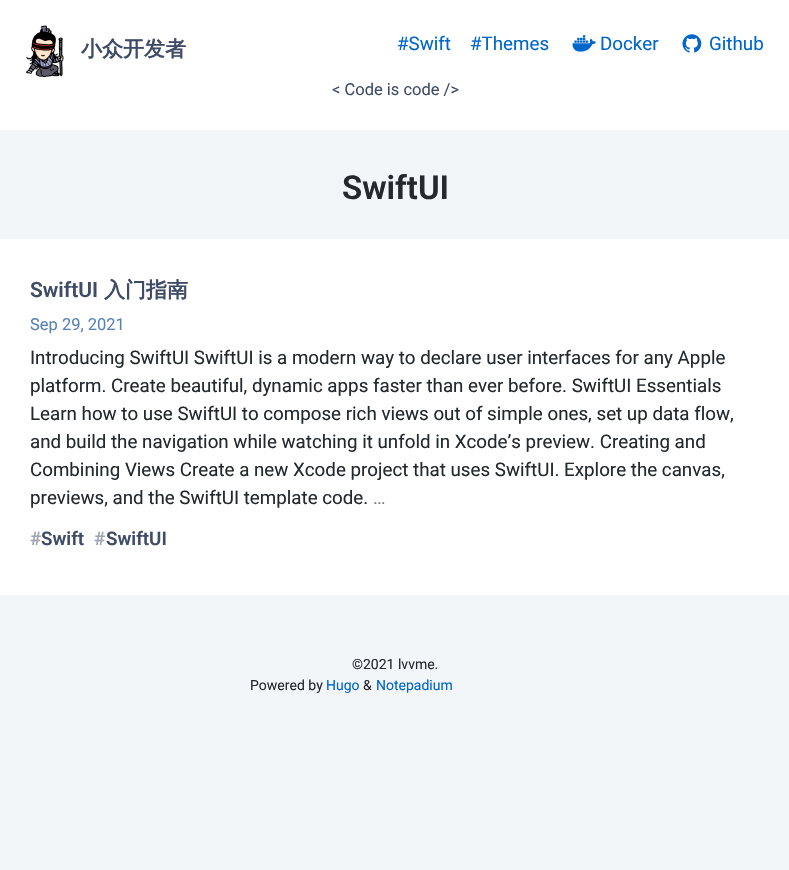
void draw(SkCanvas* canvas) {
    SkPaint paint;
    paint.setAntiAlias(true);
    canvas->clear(0xFFF3F6F9);
    paint.setColor(0xFFFFFFFF);
    canvas->drawRect(SkRect::MakeXYWH(0, 0, 789, 130), paint);
    canvas->drawImageRect(SkImages::DeferredFromEncodedData(SkData::MakeFromFileName("img1.png")), SkRect::MakeXYWH(26, 25, 38, 53), SkSamplingOptions());
    SkFont font1(fontMgr->matchFamilyStyle("WenQuanYi Zen Hei", SkFontStyle::Bold()), 21);
    font1.setSubpixel(true);
    paint.setColor(0xFF3F4B67);
    canvas->drawString("小众开发者", 81, 56, font1, paint);
    SkFont font2(fontMgr->matchFamilyStyle("Roboto", SkFontStyle::Normal()), 18.75f);
    font2.setSubpixel(true);
    paint.setColor(0xFF0066CC);
    canvas->drawString("#Swift", 397, 50, font2, paint);
    canvas->drawString("#Themes", 470, 50, font2, paint);
    canvas->drawImageRect(SkImages::DeferredFromEncodedData(SkData::MakeFromFileName("img2.png")), SkRect::MakeXYWH(572, 35, 24, 17), SkSamplingOptions());
    canvas->drawString("Docker", 600, 50, font2, paint);
    canvas->drawImageRect(SkImages::DeferredFromEncodedData(SkData::MakeFromFileName("img3.png")), SkRect::MakeXYWH(682, 34, 20, 19), SkSamplingOptions());
    canvas->drawString("Github", 709, 50, font2, paint);
    SkFont font3(fontMgr->matchFamilyStyle("Roboto", SkFontStyle::Normal()), 16.5f);
    font3.setSubpixel(true);
    paint.setColor(0xFF3F4B67);
    canvas->drawString("< Code is code />", 332, 95, font3, paint);
    SkFont font4(fontMgr->matchFamilyStyle("Roboto", SkFontStyle(600, SkFontStyle::kNormal_Width, SkFontStyle::kUpright_Slant)), 33);
    font4.setSubpixel(true);
    paint.setColor(0xFF24292E);
    canvas->drawString("SwiftUI", 342, 199, font4, paint);
    paint.setColor(0xFFFFFFFF);
    canvas->drawRect(SkRect::MakeXYWH(0, 239, 789, 356), paint);
    SkFont font5(fontMgr->matchFamilyStyle("Roboto", SkFontStyle(600, SkFontStyle::kNormal_Width, SkFontStyle::kUpright_Slant)), 21);
    font5.setSubpixel(true);
    paint.setColor(0xFF3F4B67);
    canvas->drawString("SwiftUI", 30, 297, font5, paint);
    canvas->drawString("入门指南", 104, 297, font1, paint);
    paint.setColor(0xFF5882B6);
    canvas->drawString("Sep 29, 2021", 30, 330, font3, paint);
    paint.setColor(0xFF24292E);
    canvas->drawString("Introducing SwiftUI SwiftUI is a modern way to declare user interfaces for any Apple", 30, 364, font2, paint);
    canvas->drawString("platform. Create beautiful, dynamic apps faster than ever before. SwiftUI Essentials", 30, 392, font2, paint);
    canvas->drawString("Learn how to use SwiftUI to compose rich views out of simple ones, set up data flow,", 30, 420, font2, paint);
    canvas->drawString("and build the navigation while watching it unfold in Xcode’s preview. Creating and", 30, 448, font2, paint);
    canvas->drawString("Combining Views Create a new Xcode project that uses SwiftUI. Explore the canvas,", 30, 476, font2, paint);
    canvas->drawString("previews, and the SwiftUI template code.", 30, 504, font2, paint);
    paint.setColor(0xFF7C7F82);
    canvas->drawString("…", 373, 504, font2, paint);
    SkFont font6(fontMgr->matchFamilyStyle("Roboto", SkFontStyle(600, SkFontStyle::kNormal_Width, SkFontStyle::kUpright_Slant)), 18.75f);
    font6.setSubpixel(true);
    paint.setColor(0xFF9FA5B3);
    canvas->drawString("#", 30, 545, font6, paint);
    paint.setColor(0xFF3F4B67);
    canvas->drawString("Swift", 41, 545, font6, paint);
    paint.setColor(0xFF9FA5B3);
    canvas->drawString("#", 94, 545, font6, paint);
    paint.setColor(0xFF3F4B67);
    canvas->drawString("SwiftUI", 106, 545, font6, paint);
    SkFont font7(fontMgr->matchFamilyStyle("Roboto", SkFontStyle::Normal()), 14);
    font7.setSubpixel(true);
    paint.setColor(0xFF24292E);
    canvas->drawString("©2021 lvvme.", 352, 669, font7, paint);
    canvas->drawString("Powered by", 250, 690, font7, paint);
    paint.setColor(0xFF0066CC);
    canvas->drawString("Hugo", 326, 690, font7, paint);
    paint.setColor(0xFF24292E);
    canvas->drawString("&", 363, 690, font7, paint);
    paint.setColor(0xFF0066CC);
    canvas->drawString("Notepadium", 376, 690, font7, paint);
}
